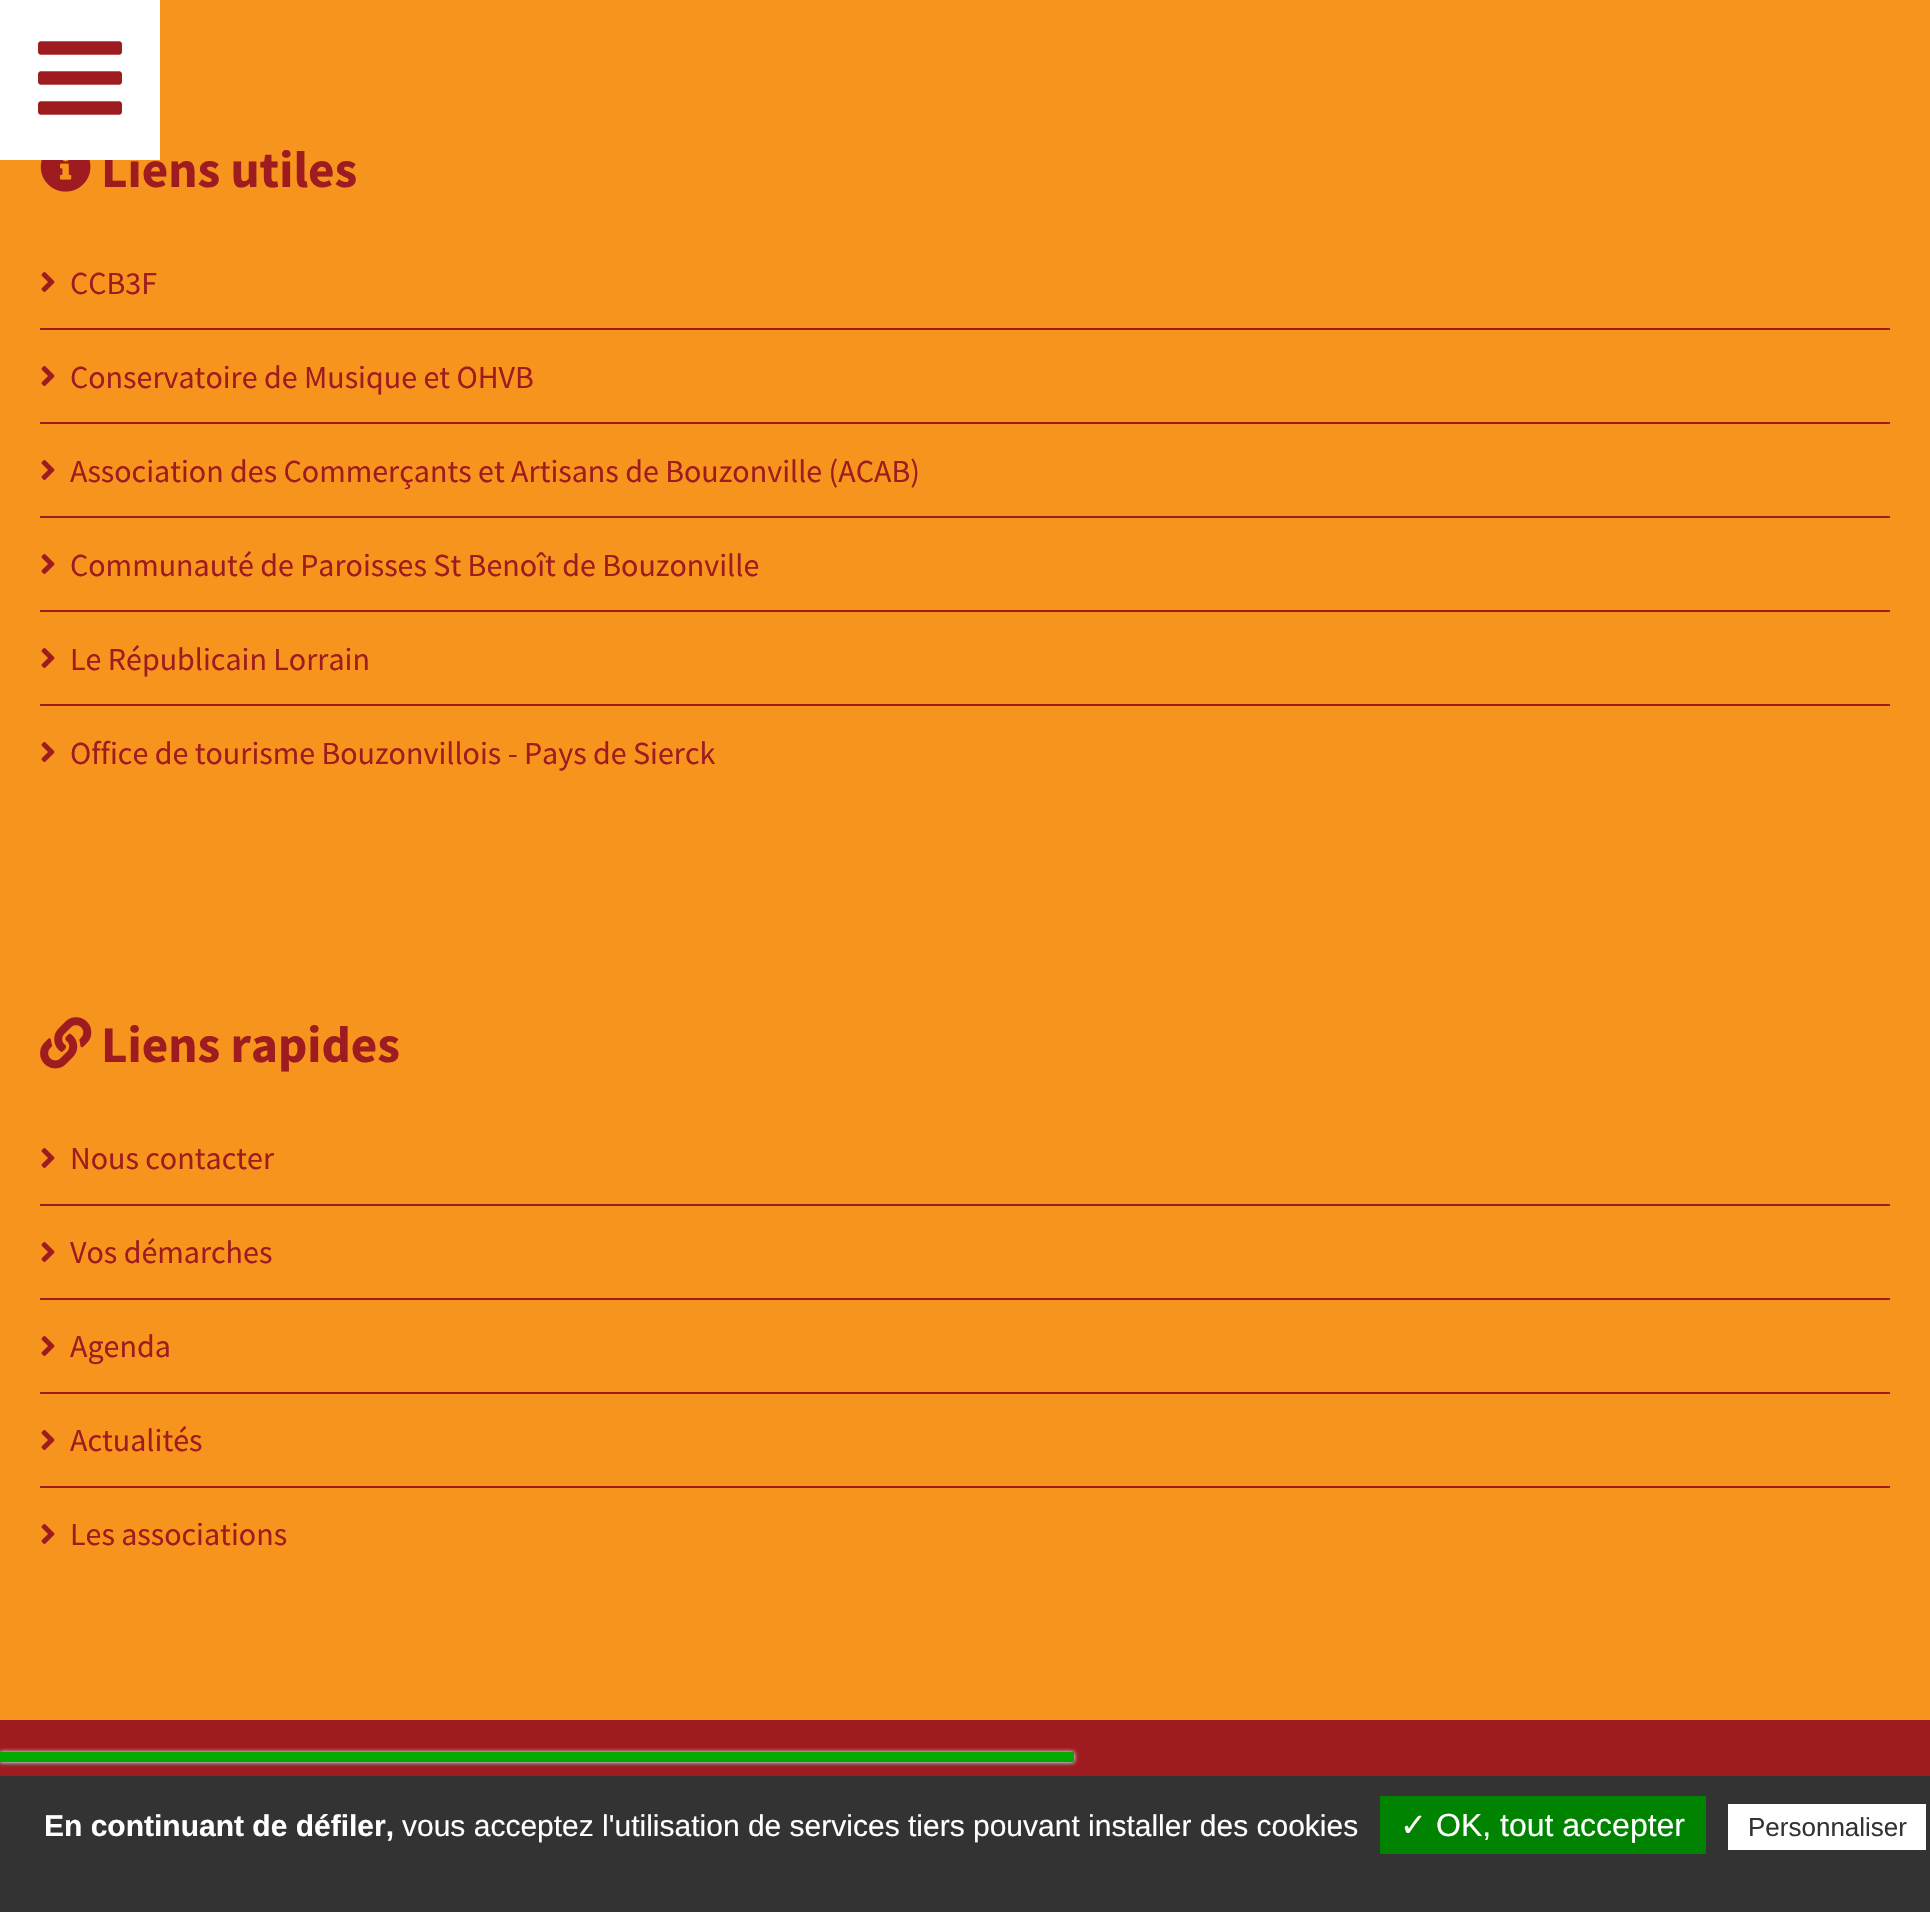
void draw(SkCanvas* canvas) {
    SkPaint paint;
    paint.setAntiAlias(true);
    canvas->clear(0xFFF7941D);
    SkFont font1(fontMgr->matchFamilyStyle("Source Sans Pro", SkFontStyle::Bold()), 51.25f);
    font1.setSubpixel(true);
    paint.setColor(0xFF9E1B20);
    canvas->drawString("Liens utiles", 101, 187, font1, paint);
    paint.setColor(0xFFFFFFFF);
    canvas->drawRect(SkRect::MakeXYWH(0, 0, 160, 160), paint);
    canvas->drawImageRect(SkImages::DeferredFromEncodedData(SkData::MakeFromFileName("img1.png")), SkRect::MakeXYWH(38, 41, 84, 74), SkSamplingOptions());
    canvas->drawImageRect(SkImages::DeferredFromEncodedData(SkData::MakeFromFileName("img2.png")), SkRect::MakeXYWH(40, 160, 51, 32), SkSamplingOptions());
    paint.setColor(0xFF9E1B20);
    canvas->drawRect(SkRect::MakeXYWH(40, 328, 1850, 2), paint);
    canvas->drawImageRect(SkImages::DeferredFromEncodedData(SkData::MakeFromFileName("img3.png")), SkRect::MakeXYWH(41, 272, 14, 20), SkSamplingOptions());
    SkFont font2(fontMgr->matchFamilyStyle("Source Sans Pro", SkFontStyle::Normal()), 32);
    font2.setSubpixel(true);
    canvas->drawString("CCB3F", 70, 294, font2, paint);
    canvas->drawRect(SkRect::MakeXYWH(40, 422, 1850, 2), paint);
    canvas->drawImageRect(SkImages::DeferredFromEncodedData(SkData::MakeFromFileName("img3.png")), SkRect::MakeXYWH(41, 366, 14, 20), SkSamplingOptions());
    canvas->drawString("Conservatoire de Musique et OHVB", 70, 388, font2, paint);
    canvas->drawRect(SkRect::MakeXYWH(40, 516, 1850, 2), paint);
    canvas->drawImageRect(SkImages::DeferredFromEncodedData(SkData::MakeFromFileName("img3.png")), SkRect::MakeXYWH(41, 460, 14, 20), SkSamplingOptions());
    canvas->drawString("Association des Commerçants et Artisans de Bouzonville (ACAB)", 70, 482, font2, paint);
    canvas->drawRect(SkRect::MakeXYWH(40, 610, 1850, 2), paint);
    canvas->drawImageRect(SkImages::DeferredFromEncodedData(SkData::MakeFromFileName("img3.png")), SkRect::MakeXYWH(41, 554, 14, 20), SkSamplingOptions());
    canvas->drawString("Communauté de Paroisses St Benoît de Bouzonville", 70, 576, font2, paint);
    canvas->drawRect(SkRect::MakeXYWH(40, 704, 1850, 2), paint);
    canvas->drawImageRect(SkImages::DeferredFromEncodedData(SkData::MakeFromFileName("img3.png")), SkRect::MakeXYWH(41, 648, 14, 20), SkSamplingOptions());
    canvas->drawString("Le Républicain Lorrain", 70, 670, font2, paint);
    canvas->drawImageRect(SkImages::DeferredFromEncodedData(SkData::MakeFromFileName("img3.png")), SkRect::MakeXYWH(41, 742, 14, 20), SkSamplingOptions());
    canvas->drawString("Office de tourisme Bouzonvillois - Pays de Sierck", 70, 764, font2, paint);
    canvas->drawImageRect(SkImages::DeferredFromEncodedData(SkData::MakeFromFileName("img4.png")), SkRect::MakeXYWH(40, 1017, 52, 52), SkSamplingOptions());
    canvas->drawString("Liens rapides", 101, 1062, font1, paint);
    canvas->drawRect(SkRect::MakeXYWH(40, 1204, 1850, 2), paint);
    canvas->drawImageRect(SkImages::DeferredFromEncodedData(SkData::MakeFromFileName("img3.png")), SkRect::MakeXYWH(41, 1148, 14, 20), SkSamplingOptions());
    canvas->drawString("Nous contacter", 70, 1169, font2, paint);
    canvas->drawRect(SkRect::MakeXYWH(40, 1298, 1850, 2), paint);
    canvas->drawImageRect(SkImages::DeferredFromEncodedData(SkData::MakeFromFileName("img3.png")), SkRect::MakeXYWH(41, 1242, 14, 20), SkSamplingOptions());
    canvas->drawString("Vos démarches", 70, 1263, font2, paint);
    canvas->drawRect(SkRect::MakeXYWH(40, 1392, 1850, 2), paint);
    canvas->drawImageRect(SkImages::DeferredFromEncodedData(SkData::MakeFromFileName("img3.png")), SkRect::MakeXYWH(41, 1336, 14, 20), SkSamplingOptions());
    canvas->drawString("Agenda", 70, 1357, font2, paint);
    canvas->drawRect(SkRect::MakeXYWH(40, 1486, 1850, 2), paint);
    canvas->drawImageRect(SkImages::DeferredFromEncodedData(SkData::MakeFromFileName("img3.png")), SkRect::MakeXYWH(41, 1430, 14, 20), SkSamplingOptions());
    canvas->drawString("Actualités", 70, 1451, font2, paint);
    canvas->drawImageRect(SkImages::DeferredFromEncodedData(SkData::MakeFromFileName("img3.png")), SkRect::MakeXYWH(41, 1524, 14, 20), SkSamplingOptions());
    canvas->drawString("Les associations", 70, 1545, font2, paint);
    canvas->drawRect(SkRect::MakeXYWH(0, 1720, 1930, 56), paint);
    paint.setColor(0xFF555555);
    paint.setMaskFilter(SkMaskFilter::MakeBlur(kNormal_SkBlurStyle, 2));
    canvas->drawRect(SkRect::MakeXYWH(0, 1754, 1074, 10), paint);
    paint.setMaskFilter(nullptr);
    paint.setColor(0xFFFFFFFF);
    paint.setMaskFilter(SkMaskFilter::MakeBlur(kNormal_SkBlurStyle, 2));
    canvas->drawRect(SkRect::MakeXYWH(0, 1752, 1074, 10), paint);
    paint.setMaskFilter(nullptr);
    paint.setColor(0xFF00AA00);
    canvas->drawRect(SkRect::MakeXYWH(0, 1752, 1074, 10), paint);
    paint.setColor(0xFF333333);
    canvas->drawRect(SkRect::MakeXYWH(0, 1776, 1930, 136), paint);
    SkFont font3(fontMgr->matchFamilyStyle("Liberation Sans", SkFontStyle::Bold()), 30);
    font3.setSubpixel(true);
    paint.setColor(0xFFFFFFFF);
    canvas->drawString("En continuant de défiler,", 44, 1836, font3, paint);
    SkFont font4(fontMgr->matchFamilyStyle("Liberation Sans", SkFontStyle::Normal()), 30);
    font4.setSubpixel(true);
    canvas->drawString("vous acceptez l'utilisation de services tiers pouvant installer des cookies", 402, 1836, font4, paint);
    paint.setColor(0xFF008300);
    canvas->drawRect(SkRect::MakeXYWH(1380, 1796, 326, 58), paint);
    SkFont font5(fontMgr->matchFamilyStyle("DejaVu Sans", SkFontStyle::Normal()), 32);
    font5.setSubpixel(true);
    paint.setColor(0xFFFFFFFF);
    canvas->drawString("✓", 1400, 1836, font5, paint);
    SkFont font6(fontMgr->matchFamilyStyle("Liberation Sans", SkFontStyle::Normal()), 32);
    font6.setSubpixel(true);
    canvas->drawString("OK, tout accepter", 1436, 1836, font6, paint);
    canvas->drawRect(SkRect::MakeXYWH(1728, 1804, 198, 46), paint);
    SkFont font7(fontMgr->matchFamilyStyle("Liberation Sans", SkFontStyle::Normal()), 26);
    font7.setSubpixel(true);
    paint.setColor(0xFF333333);
    canvas->drawString("Personnaliser", 1748, 1836, font7, paint);
}
